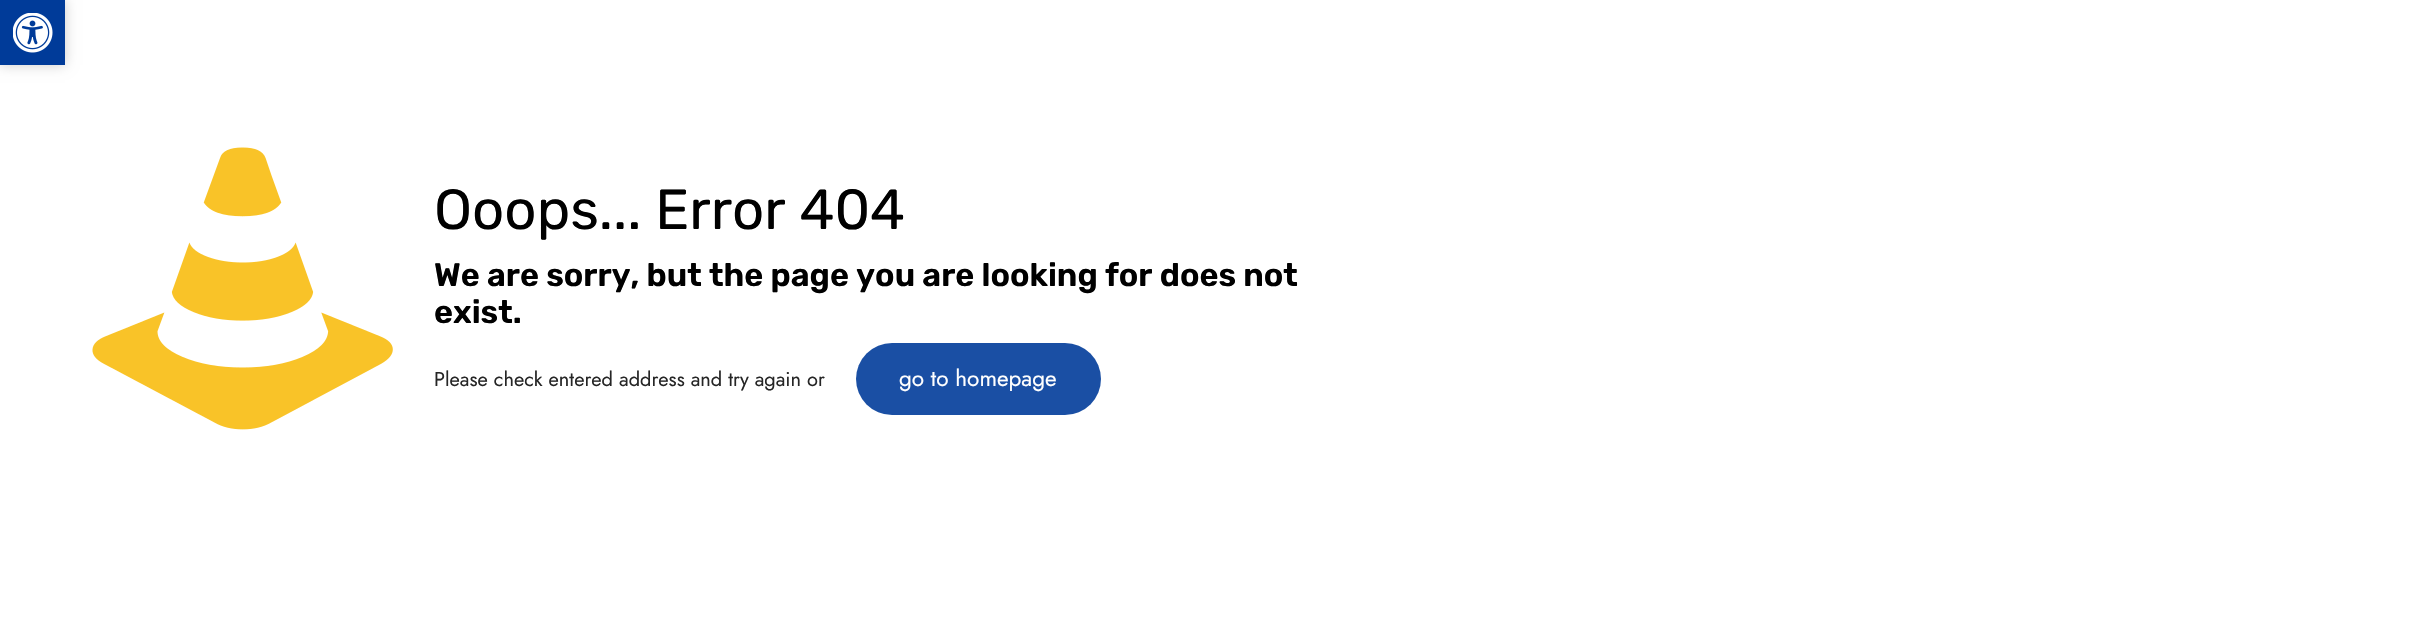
void draw(SkCanvas* canvas) {
    SkPaint paint;
    paint.setAntiAlias(true);
    canvas->clear(0xFFFFFFFF);
    paint.setColor(0x33000000);
    paint.setMaskFilter(SkMaskFilter::MakeBlur(kNormal_SkBlurStyle, 6));
    canvas->drawRect(SkRect::MakeXYWH(0, 0, 65, 65), paint);
    paint.setMaskFilter(nullptr);
    paint.setColor(0xFF003B99);
    canvas->drawRect(SkRect::MakeXYWH(0, 0, 65, 65), paint);
    canvas->drawImageRect(SkImages::DeferredFromEncodedData(SkData::MakeFromFileName("img1.png")), SkRect::MakeXYWH(13, 13, 40, 40), SkSamplingOptions());
    canvas->drawImageRect(SkImages::DeferredFromEncodedData(SkData::MakeFromFileName("img2.png")), SkRect::MakeXYWH(92, 147, 301, 283), SkSamplingOptions());
    SkFont font1(fontMgr->matchFamilyStyle("Rubik", SkFontStyle::Normal()), 56.25f);
    font1.setSubpixel(true);
    paint.setColor(0xFF000000);
    canvas->drawString("Ooops... Error 404", 434, 229, font1, paint);
    SkFont font2(fontMgr->matchFamilyStyle("Rubik", SkFontStyle(600, SkFontStyle::kNormal_Width, SkFontStyle::kUpright_Slant)), 32.5f);
    font2.setSubpixel(true);
    canvas->drawString("We are sorry, but the page you are looking for does not", 434, 286, font2, paint);
    canvas->drawString("exist.", 434, 323, font2, paint);
    SkFont font3(fontMgr->matchFamilyStyle("Jost", SkFontStyle::Normal()), 20);
    font3.setSubpixel(true);
    paint.setColor(0xFF262626);
    canvas->drawString("Please check entered address and try again or", 434, 386, font3, paint);
    paint.setColor(0xFF1A4FA4);
    canvas->drawRoundRect(SkRect::MakeXYWH(856, 343, 245, 72), 36, 36, paint);
    SkFont font4(fontMgr->matchFamilyStyle("Jost", SkFontStyle::Normal()), 22.5f);
    font4.setSubpixel(true);
    paint.setColor(0xFFFFFFFF);
    canvas->drawString("go to homepage", 899, 386, font4, paint);
}
